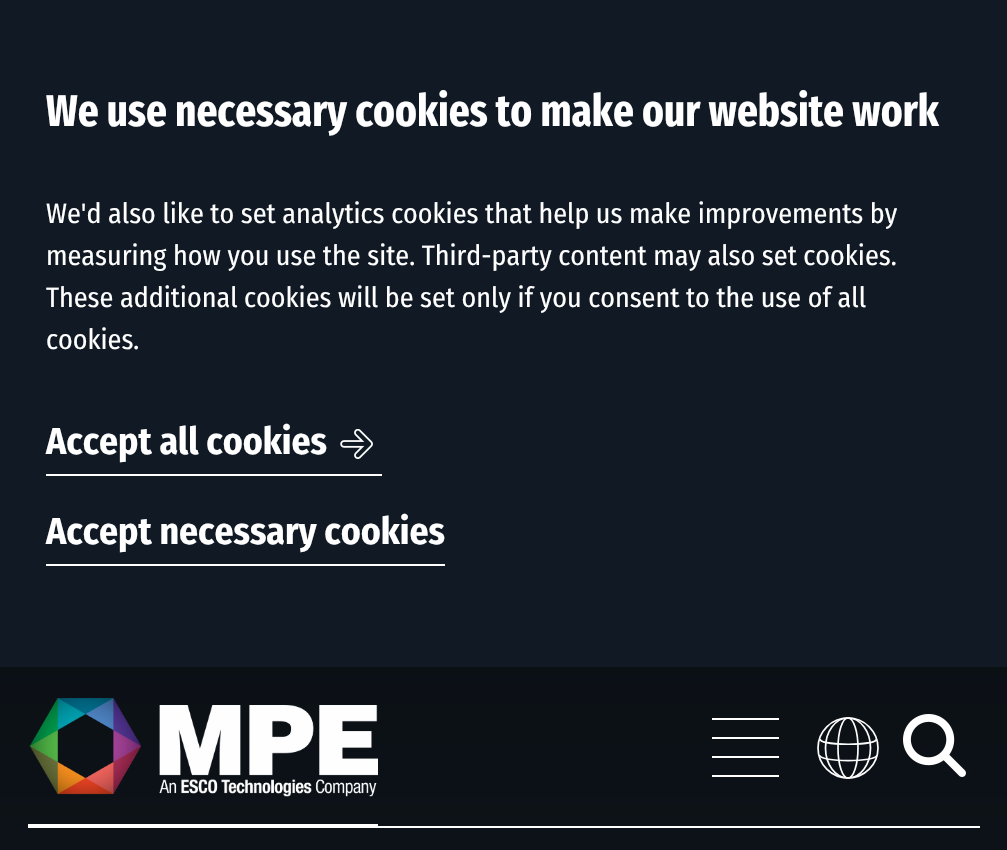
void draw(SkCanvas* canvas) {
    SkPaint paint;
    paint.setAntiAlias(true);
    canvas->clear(0xFFFFFFFF);
    {
        const SkColor colors[] = {0xFF06090C, 0xFF222E3D};
        const float stops[] = {0, 1};
        const SkPoint ends[] = {{504, 0}, {504, 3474}};
        paint.setShader(SkGradientShader::MakeLinear(ends, colors, stops, 2, SkTileMode::kClamp));
        paint.setAlpha(255);
    }
    canvas->drawRect(SkRect::MakeXYWH(0, 667, 1007, 183), paint);
    paint.setShader(nullptr);
    paint.setColor(0xFF101924);
    canvas->drawRect(SkRect::MakeXYWH(0, 0, 1007, 667), paint);
    SkFont font1(fontMgr->matchFamilyStyle("Fira Sans Extra Condensed", SkFontStyle::Bold()), 44.5f);
    font1.setSubpixel(true);
    paint.setColor(0xFFFFFFFF);
    canvas->drawString("We use necessary cookies to make our website work", 46, 126, font1, paint);
    SkFont font2(fontMgr->matchFamilyStyle("Fira Sans Condensed", SkFontStyle::Normal()), 28);
    font2.setSubpixel(true);
    canvas->drawString("We'd also like to set analytics cookies that help us make improvements by", 46, 223, font2, paint);
    canvas->drawString("measuring how you use the site. Third-party content may also set cookies.", 46, 265, font2, paint);
    canvas->drawString("These additional cookies will be set only if you consent to the use of all", 46, 307, font2, paint);
    canvas->drawString("cookies.", 46, 349, font2, paint);
    canvas->drawImageRect(SkImages::DeferredFromEncodedData(SkData::MakeFromFileName("img1.png")), SkRect::MakeXYWH(340, 429, 33, 30), SkSamplingOptions());
    canvas->drawRect(SkRect::MakeXYWH(46, 474, 336, 2), paint);
    SkFont font3(fontMgr->matchFamilyStyle("Fira Sans Condensed", SkFontStyle::Bold()), 37.5f);
    font3.setSubpixel(true);
    canvas->drawString("Accept all cookies", 46, 454, font3, paint);
    canvas->drawRect(SkRect::MakeXYWH(46, 564, 399, 2), paint);
    canvas->drawString("Accept necessary cookies", 46, 544, font3, paint);
    canvas->drawRect(SkRect::MakeXYWH(28, 826, 952, 2), paint);
    canvas->drawRect(SkRect::MakeXYWH(28, 824, 350, 2), paint);
    canvas->drawImageRect(SkImages::DeferredFromEncodedData(SkData::MakeFromFileName("img2.png")), SkRect::MakeXYWH(29, 698, 349, 99), SkSamplingOptions());
    canvas->drawRect(SkRect::MakeXYWH(712, 737, 67, 2), paint);
    canvas->drawRect(SkRect::MakeXYWH(712, 756, 67, 2), paint);
    canvas->drawRect(SkRect::MakeXYWH(712, 718, 67, 2), paint);
    canvas->drawRect(SkRect::MakeXYWH(712, 775, 67, 2), paint);
    paint.setStyle(SkPaint::kStroke_Style);
    paint.setStrokeWidth(1.7f);
    paint.setColor(0xFFFCFCFC);
    canvas->drawCircle(848, 748, 30, paint);
    canvas->drawOval(SkRect::MakeXYWH(825.5f, 718, 45, 60), paint);
    canvas->drawOval(SkRect::MakeXYWH(838, 718, 20, 60), paint);
    canvas->drawPath(SkPathBuilder().moveTo(876.5f, 739).cubicTo(876.5f, 746, 820, 746, 820, 739).moveTo(877, 755).cubicTo(877, 762.5f, 819.5f, 762.5f, 819.5f, 755).detach(), paint);
    canvas->drawImageRect(SkImages::DeferredFromEncodedData(SkData::MakeFromFileName("img3.png")), SkRect::MakeXYWH(903, 714, 63, 63), SkSamplingOptions());
}
